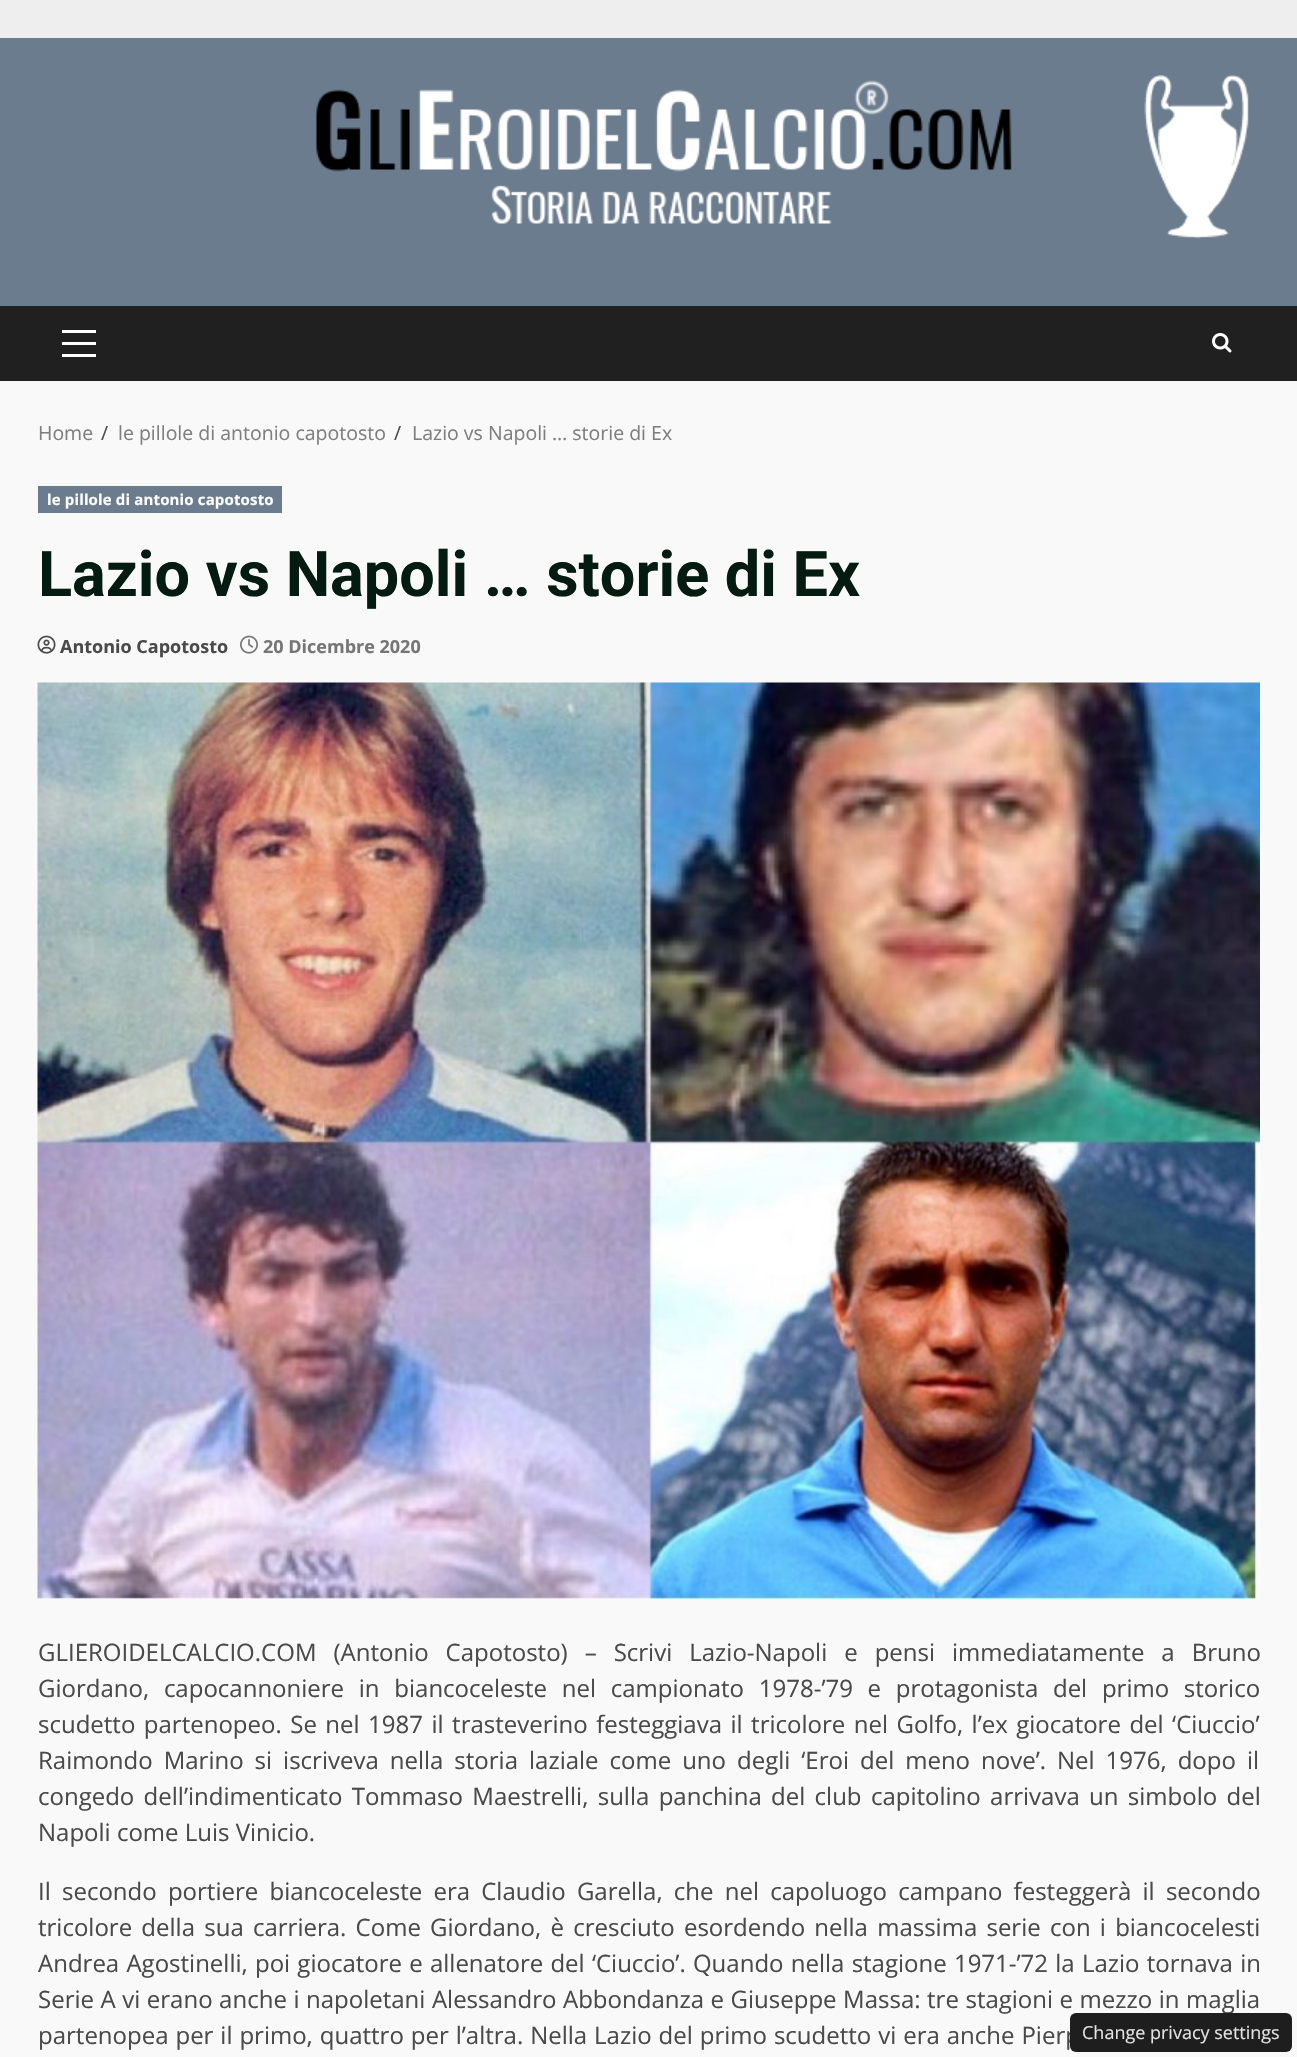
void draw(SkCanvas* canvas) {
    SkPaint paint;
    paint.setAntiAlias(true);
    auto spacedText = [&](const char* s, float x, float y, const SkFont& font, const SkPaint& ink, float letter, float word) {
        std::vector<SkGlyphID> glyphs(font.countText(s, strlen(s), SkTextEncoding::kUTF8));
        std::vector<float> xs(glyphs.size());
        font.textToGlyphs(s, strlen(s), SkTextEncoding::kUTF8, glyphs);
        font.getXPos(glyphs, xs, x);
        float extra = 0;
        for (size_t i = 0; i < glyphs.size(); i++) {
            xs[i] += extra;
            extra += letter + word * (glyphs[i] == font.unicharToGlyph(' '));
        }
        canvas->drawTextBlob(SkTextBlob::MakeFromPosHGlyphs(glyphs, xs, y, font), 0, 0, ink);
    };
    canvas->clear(0xFFEEEEEE);
    paint.setColor(0xFFF9F9F9);
    canvas->drawRect(SkRect::MakeXYWH(0, 381, 1297, 1676), paint);
    paint.setColor(0xFF6B7C8E);
    canvas->drawRect(SkRect::MakeXYWH(0, 38, 1297, 268), paint);
    canvas->drawImageRect(SkImages::DeferredFromEncodedData(SkData::MakeFromFileName("img1.png")), SkRect::MakeXYWH(315, 75, 934, 164), SkSamplingOptions());
    paint.setColor(0xFF202020);
    canvas->drawRect(SkRect::MakeXYWH(0, 306, 1297, 75), paint);
    paint.setColor(0xFFFFFFFF);
    canvas->drawRect(SkRect::MakeXYWH(62, 342, 34, 3), paint);
    canvas->drawRect(SkRect::MakeXYWH(62, 330, 34, 3), paint);
    canvas->drawRect(SkRect::MakeXYWH(62, 354, 34, 3), paint);
    canvas->drawImageRect(SkImages::DeferredFromEncodedData(SkData::MakeFromFileName("img2.png")), SkRect::MakeXYWH(1212, 333, 20, 20), SkSamplingOptions());
    SkFont font1(fontMgr->matchFamilyStyle("Open Sans", SkFontStyle::Normal()), 19.5f);
    font1.setSubpixel(true);
    paint.setColor(0xFF7F7F7F);
    canvas->drawString("Home", 38, 440, font1, paint);
    paint.setColor(0xFF4A4A4A);
    canvas->drawString("/", 101, 440, font1, paint);
    paint.setColor(0xFF7F7F7F);
    canvas->drawString("le pillole di antonio capotosto", 118, 440, font1, paint);
    paint.setColor(0xFF4A4A4A);
    canvas->drawString("/", 394, 440, font1, paint);
    paint.setColor(0xFF7F7F7F);
    canvas->drawString("Lazio vs Napoli … storie di Ex", 412, 440, font1, paint);
    paint.setColor(0xFF6B7C8E);
    canvas->drawRect(SkRect::MakeXYWH(38, 486, 244, 27), paint);
    SkFont font2(fontMgr->matchFamilyStyle("Open Sans", SkFontStyle::Bold()), 15);
    font2.setSubpixel(true);
    paint.setColor(0xFFFFFFFF);
    spacedText("le pillole di antonio capotosto", 47, 505, font2, paint, 0.15f, 0);
    SkFont font3(fontMgr->matchFamilyStyle("Roboto", SkFontStyle::Bold()), 63);
    font3.setSubpixel(true);
    paint.setColor(0xFF031B11);
    canvas->drawString("Lazio vs Napoli … storie di Ex", 38, 596, font3, paint);
    canvas->drawImageRect(SkImages::DeferredFromEncodedData(SkData::MakeFromFileName("img3.png")), SkRect::MakeXYWH(37, 635, 19, 19), SkSamplingOptions());
    SkFont font4(fontMgr->matchFamilyStyle("Open Sans", SkFontStyle::Bold()), 18);
    font4.setSubpixel(true);
    paint.setColor(0xFF4A4A4A);
    canvas->drawString("Antonio Capotosto", 60, 653, font4, paint);
    canvas->drawImageRect(SkImages::DeferredFromEncodedData(SkData::MakeFromFileName("img4.png")), SkRect::MakeXYWH(240, 635, 18, 19), SkSamplingOptions());
    paint.setColor(0xFF767676);
    canvas->drawString("20 Dicembre 2020", 263, 653, font4, paint);
    canvas->drawImageRect(SkImages::DeferredFromEncodedData(SkData::MakeFromFileName("img5.png")), SkRect::MakeXYWH(37, 682, 1223, 917), SkSamplingOptions());
    SkFont font5(fontMgr->matchFamilyStyle("Open Sans", SkFontStyle::Normal()), 24);
    font5.setSubpixel(true);
    paint.setColor(0xFF4A4A4A);
    spacedText("GLIEROIDELCALCIO.COM (Antonio Capotosto) – Scrivi Lazio-Napoli e pensi immediatamente a Bruno", 38, 1661, font5, paint, 0, 10.75f);
    spacedText("Giordano, capocannoniere in biancoceleste nel campionato 1978-’79 e protagonista del primo storico", 38, 1697, font5, paint, 0, 8.5f);
    spacedText("scudetto partenopeo. Se nel 1987 il trasteverino festeggiava il tricolore nel Golfo, l’ex giocatore del ‘Ciuccio’", 38, 1733, font5, paint, 0, 2.25f);
    spacedText("Raimondo Marino si iscriveva nella storia laziale come uno degli ‘Eroi del meno nove’. Nel 1976, dopo il", 38, 1769, font5, paint, 0, 4.75f);
    spacedText("congedo dell’indimenticato Tommaso Maestrelli, sulla panchina del club capitolino arrivava un simbolo del", 38, 1805, font5, paint, 0, 3.1f);
    canvas->drawString("Napoli come Luis Vinicio.", 38, 1841, font5, paint);
    spacedText("Il secondo portiere biancoceleste era Claudio Garella, che nel capoluogo campano festeggerà il secondo", 38, 1900, font5, paint, 0, 5);
    spacedText("tricolore della sua carriera. Come Giordano, è cresciuto esordendo nella massima serie con i biancocelesti", 38, 1936, font5, paint, 0, 3);
    spacedText("Andrea Agostinelli, poi giocatore e allenatore del ‘Ciuccio’. Quando nella stagione 1971-’72 la Lazio tornava in", 38, 1972, font5, paint, 0, 1);
    spacedText("Serie A vi erano anche i napoletani Alessandro Abbondanza e Giuseppe Massa: tre stagioni e mezzo in maglia", 38, 2008, font5, paint, 0, 0.3f);
    spacedText("partenopea per il primo, quattro per l’altra. Nella Lazio del primo scudetto vi era anche Pierp", 38, 2044, font5, paint, 0, 0.7f);
    paint.setColor(0xFF1E1E1E);
    canvas->drawRoundRect(SkRect::MakeXYWH(1070, 2013, 222, 39), 6, 6, paint);
    SkFont font6(fontMgr->matchFamilyStyle("Open Sans", SkFontStyle::Normal()), 18);
    font6.setSubpixel(true);
    paint.setColor(0xFFE3E1E1);
    canvas->drawString("Change privacy settings", 1082, 2039, font6, paint);
}
